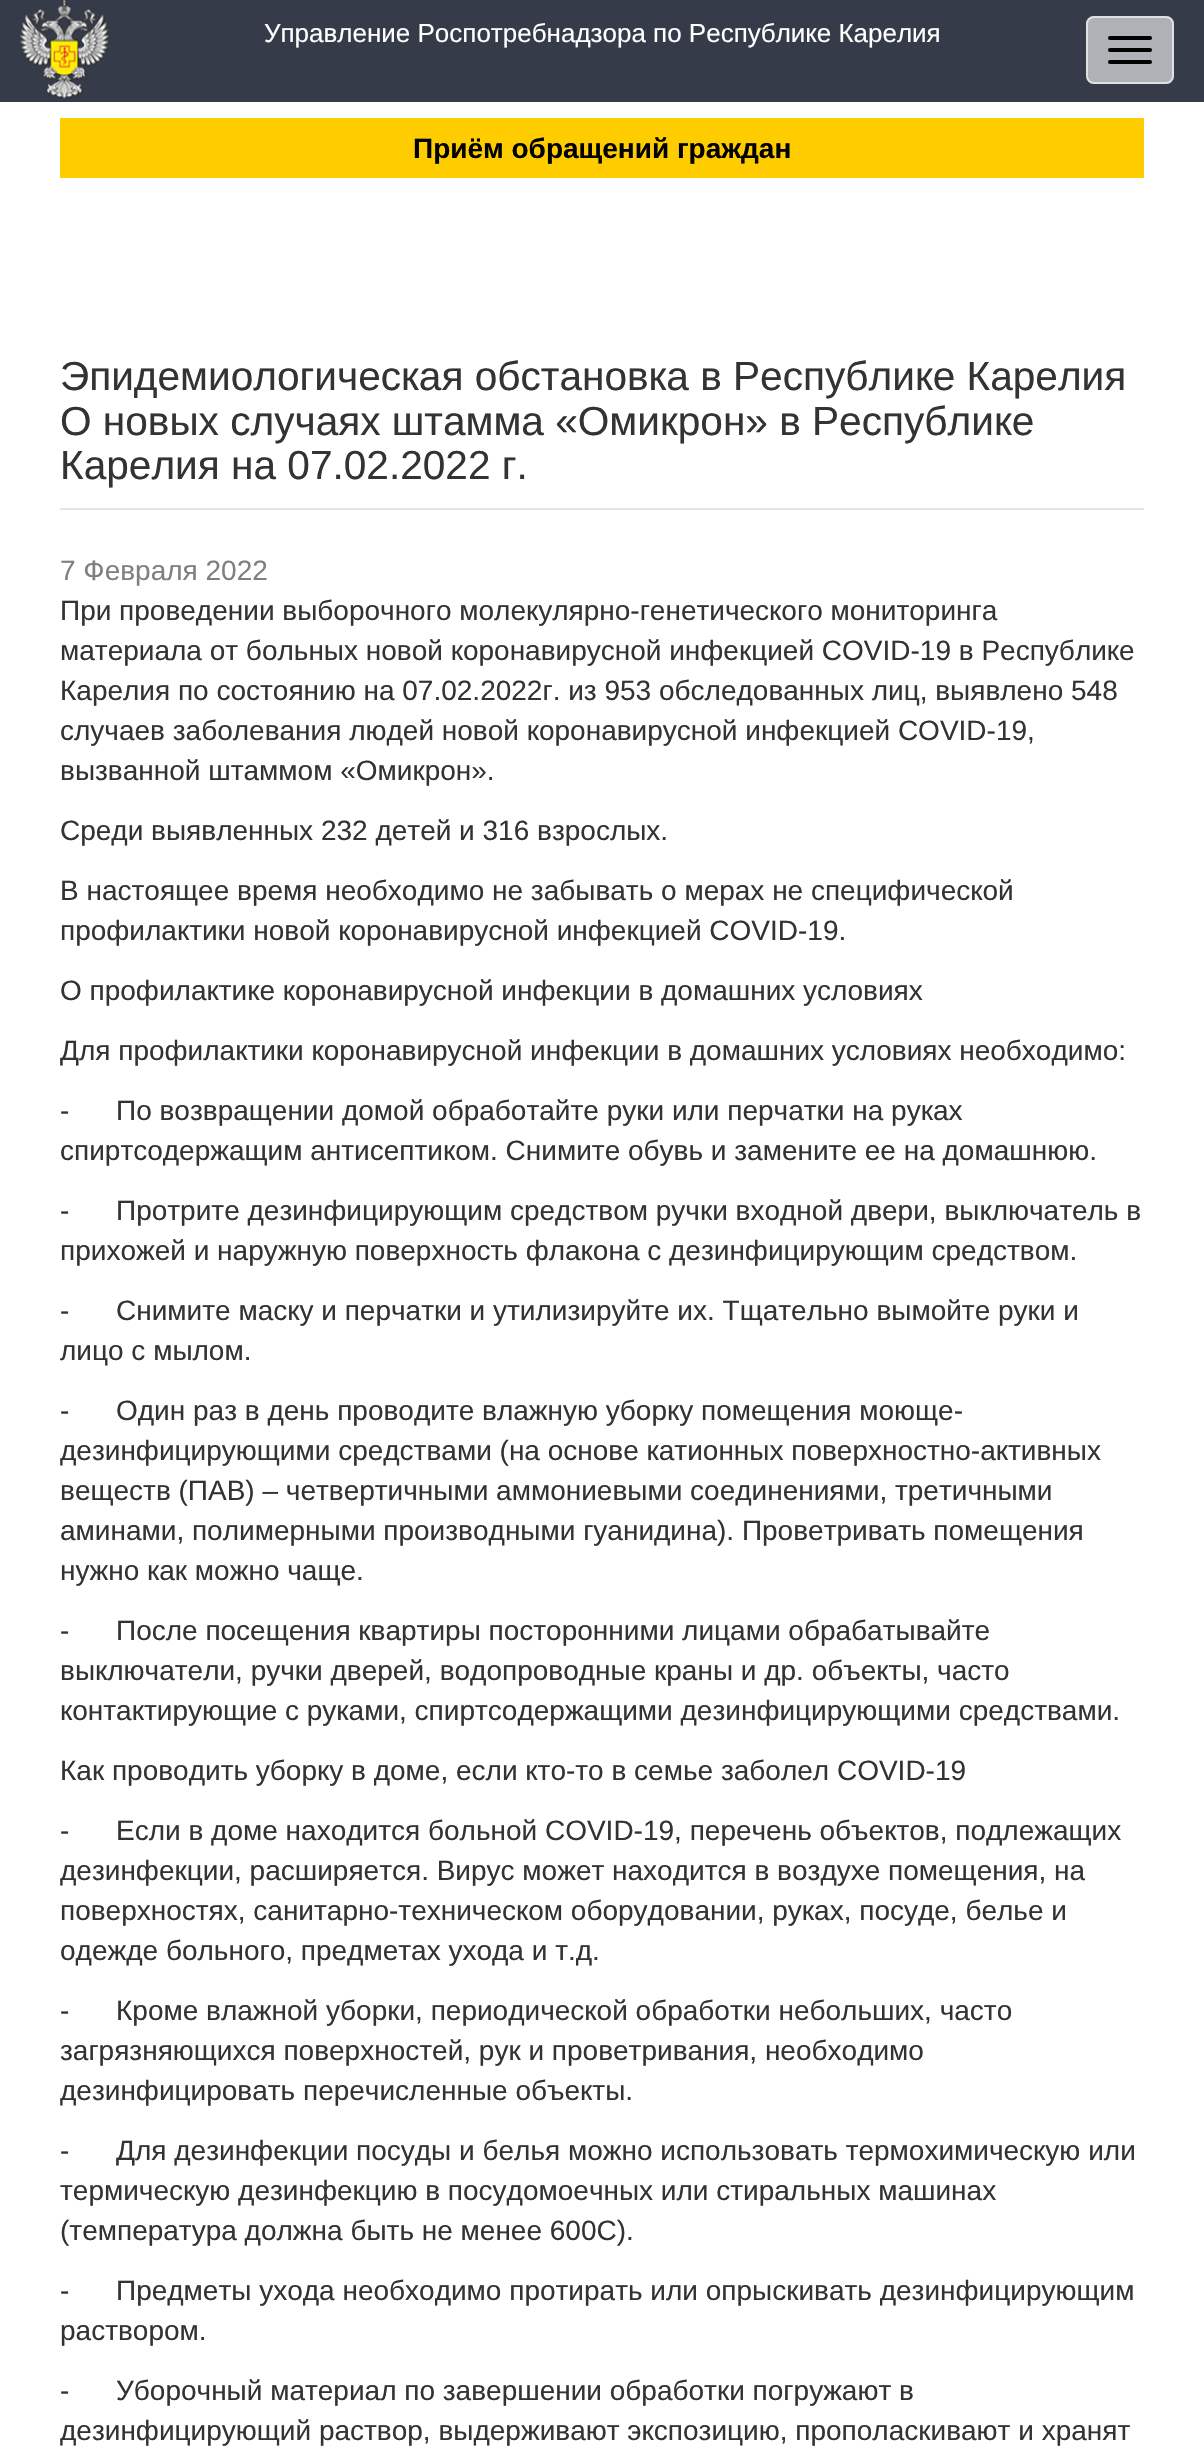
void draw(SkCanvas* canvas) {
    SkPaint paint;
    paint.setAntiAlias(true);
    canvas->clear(0xFFFFFFFF);
    paint.setColor(0xFF353B48);
    canvas->drawRect(SkRect::MakeXYWH(0, 0, 1204, 102), paint);
    canvas->drawImageRect(SkImages::DeferredFromEncodedData(SkData::MakeFromFileName("img1.png")), SkRect::MakeXYWH(20, 0, 90, 100), SkSamplingOptions());
    SkFont font1(fontMgr->matchFamilyStyle("Liberation Sans", SkFontStyle::Normal()), 26);
    font1.setSubpixel(true);
    paint.setColor(0xFFFFFFFF);
    canvas->drawString("Управление Роспотребнадзора по Республике Карелия", 264, 42, font1, paint);
    paint.setColor(0xFFAEB1B6);
    canvas->drawRoundRect(SkRect::MakeXYWH(1086, 16, 88, 68), 8, 8, paint);
    paint.setStyle(SkPaint::kStroke_Style);
    paint.setStrokeWidth(2);
    paint.setColor(0x99FFFFFF);
    canvas->drawRoundRect(SkRect::MakeXYWH(1087, 17, 86, 66), 7, 7, paint);
    paint.setStyle(SkPaint::kFill_Style);
    paint.setColor(0xFF000000);
    canvas->drawRoundRect(SkRect::MakeXYWH(1108, 36, 44, 4), 2, 2, paint);
    canvas->drawRoundRect(SkRect::MakeXYWH(1108, 48, 44, 4), 2, 2, paint);
    canvas->drawRoundRect(SkRect::MakeXYWH(1108, 60, 44, 4), 2, 2, paint);
    paint.setColor(0xFFFFCC00);
    canvas->drawRect(SkRect::MakeXYWH(60, 118, 1084, 60), paint);
    SkFont font2(fontMgr->matchFamilyStyle("Liberation Sans", SkFontStyle::Bold()), 28);
    font2.setSubpixel(true);
    paint.setColor(0xFF000000);
    canvas->drawString("Приём обращений граждан", 413, 158, font2, paint);
    paint.setColor(0xFFE5E5E5);
    canvas->drawRect(SkRect::MakeXYWH(60, 508, 1084, 2), paint);
    SkFont font3(fontMgr->matchFamilyStyle("Liberation Sans", SkFontStyle::Normal()), 40.6f);
    font3.setSubpixel(true);
    paint.setColor(0xFF333333);
    canvas->drawString("Эпидемиологическая обстановка в Республике Карелия", 60, 390, font3, paint);
    canvas->drawString("О новых случаях штамма «Омикрон» в Республике", 60, 435, font3, paint);
    canvas->drawString("Карелия на 07.02.2022 г.", 60, 479, font3, paint);
    SkFont font4(fontMgr->matchFamilyStyle("Liberation Sans", SkFontStyle::Normal()), 28);
    font4.setSubpixel(true);
    paint.setColor(0xFF7F7F7F);
    canvas->drawString("7 Февраля 2022", 60, 580, font4, paint);
    paint.setColor(0xFF333333);
    canvas->drawString("При проведении выборочного молекулярно-генетического мониторинга", 60, 620, font4, paint);
    canvas->drawString("материала от больных новой коронавирусной инфекцией COVID-19 в Республике", 60, 660, font4, paint);
    canvas->drawString("Карелия по состоянию на 07.02.2022г. из 953 обследованных лиц, выявлено 548", 60, 700, font4, paint);
    canvas->drawString("случаев заболевания людей новой коронавирусной инфекцией COVID-19,", 60, 740, font4, paint);
    canvas->drawString("вызванной штаммом «Омикрон».", 60, 780, font4, paint);
    canvas->drawString("Среди выявленных 232 детей и 316 взрослых.", 60, 840, font4, paint);
    canvas->drawString("В настоящее время необходимо не забывать о мерах не специфической", 60, 900, font4, paint);
    canvas->drawString("профилактики новой коронавирусной инфекцией COVID-19.", 60, 940, font4, paint);
    canvas->drawString("О профилактике коронавирусной инфекции в домашних условиях", 60, 1000, font4, paint);
    canvas->drawString("Для профилактики коронавирусной инфекции в домашних условиях необходимо:", 60, 1060, font4, paint);
    canvas->drawString("-      По возвращении домой обработайте руки или перчатки на руках", 60, 1120, font4, paint);
    canvas->drawString("спиртсодержащим антисептиком. Снимите обувь и замените ее на домашнюю.", 60, 1160, font4, paint);
    canvas->drawString("-      Протрите дезинфицирующим средством ручки входной двери, выключатель в", 60, 1220, font4, paint);
    canvas->drawString("прихожей и наружную поверхность флакона с дезинфицирующим средством.", 60, 1260, font4, paint);
    canvas->drawString("-      Снимите маску и перчатки и утилизируйте их. Тщательно вымойте руки и", 60, 1320, font4, paint);
    canvas->drawString("лицо с мылом.", 60, 1360, font4, paint);
    canvas->drawString("-      Один раз в день проводите влажную уборку помещения моюще-", 60, 1420, font4, paint);
    canvas->drawString("дезинфицирующими средствами (на основе катионных поверхностно-активных", 60, 1460, font4, paint);
    canvas->drawString("веществ (ПАВ) – четвертичными аммониевыми соединениями, третичными", 60, 1500, font4, paint);
    canvas->drawString("аминами, полимерными производными гуанидина). Проветривать помещения", 60, 1540, font4, paint);
    canvas->drawString("нужно как можно чаще.", 60, 1580, font4, paint);
    canvas->drawString("-      После посещения квартиры посторонними лицами обрабатывайте", 60, 1640, font4, paint);
    canvas->drawString("выключатели, ручки дверей, водопроводные краны и др. объекты, часто", 60, 1680, font4, paint);
    canvas->drawString("контактирующие с руками, спиртсодержащими дезинфицирующими средствами.", 60, 1720, font4, paint);
    canvas->drawString("Как проводить уборку в доме, если кто-то в семье заболел COVID-19", 60, 1780, font4, paint);
    canvas->drawString("-      Если в доме находится больной COVID-19, перечень объектов, подлежащих", 60, 1840, font4, paint);
    canvas->drawString("дезинфекции, расширяется. Вирус может находится в воздухе помещения, на", 60, 1880, font4, paint);
    canvas->drawString("поверхностях, санитарно-техническом оборудовании, руках, посуде, белье и", 60, 1920, font4, paint);
    canvas->drawString("одежде больного, предметах ухода и т.д.", 60, 1960, font4, paint);
    canvas->drawString("-      Кроме влажной уборки, периодической обработки небольших, часто", 60, 2020, font4, paint);
    canvas->drawString("загрязняющихся поверхностей, рук и проветривания, необходимо", 60, 2060, font4, paint);
    canvas->drawString("дезинфицировать перечисленные объекты.", 60, 2100, font4, paint);
    canvas->drawString("-      Для дезинфекции посуды и белья можно использовать термохимическую или", 60, 2160, font4, paint);
    canvas->drawString("термическую дезинфекцию в посудомоечных или стиральных машинах", 60, 2200, font4, paint);
    canvas->drawString("(температура должна быть не менее 600С).", 60, 2240, font4, paint);
    canvas->drawString("-      Предметы ухода необходимо протирать или опрыскивать дезинфицирующим", 60, 2300, font4, paint);
    canvas->drawString("раствором.", 60, 2340, font4, paint);
    canvas->drawString("-      Уборочный материал по завершении обработки погружают в", 60, 2400, font4, paint);
    canvas->drawString("дезинфицирующий раствор, выдерживают экспозицию, прополаскивают и хранят", 60, 2440, font4, paint);
}
